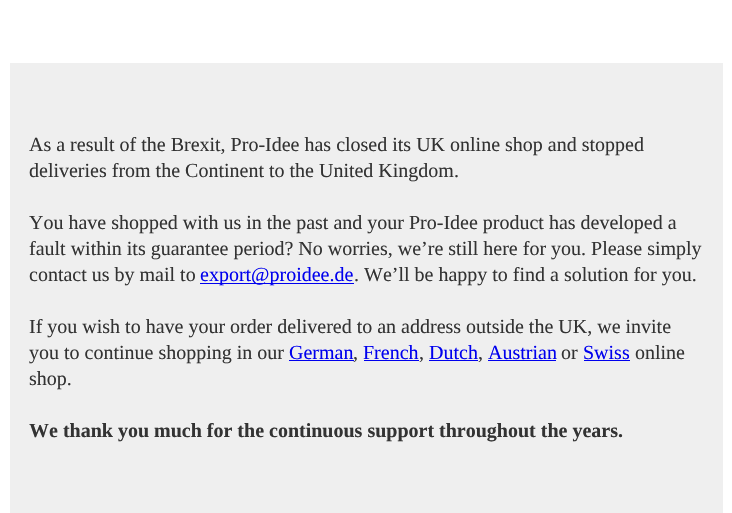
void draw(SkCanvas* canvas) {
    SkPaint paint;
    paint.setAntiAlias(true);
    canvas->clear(0xFFFFFFFF);
    paint.setColor(0xFFEFEFEF);
    canvas->drawRect(SkRect::MakeXYWH(10, 63, 713, 450), paint);
    SkFont font1(fontMgr->matchFamilyStyle("Liberation Serif", SkFontStyle::Normal()), 20);
    font1.setSubpixel(true);
    paint.setColor(0xFF333333);
    canvas->drawString("As a result of the Brexit, Pro-Idee has closed its UK online shop and stopped", 29, 151, font1, paint);
    canvas->drawString("deliveries from the Continent to the United Kingdom.", 29, 177, font1, paint);
    canvas->drawString("You have shopped with us in the past and your Pro-Idee product has developed a", 29, 229, font1, paint);
    canvas->drawString("fault within its guarantee period? No worries, we’re still here for you. Please simply", 29, 255, font1, paint);
    canvas->drawString("contact us by mail to", 29, 281, font1, paint);
    paint.setColor(0xFF0000EE);
    canvas->drawRect(SkRect::MakeXYWH(200, 283, 154, 1), paint);
    canvas->drawString("export@proidee.de", 200, 281, font1, paint);
    paint.setColor(0xFF333333);
    canvas->drawString(". We’ll be happy to find a solution for you.", 354, 281, font1, paint);
    canvas->drawString("If you wish to have your order delivered to an address outside the UK, we invite", 29, 333, font1, paint);
    canvas->drawString("you to continue shopping in our", 29, 359, font1, paint);
    paint.setColor(0xFF0000EE);
    canvas->drawString("German", 289, 359, font1, paint);
    canvas->drawRect(SkRect::MakeXYWH(289, 360, 65, 1), paint);
    paint.setColor(0xFF333333);
    canvas->drawString(",", 353, 359, font1, paint);
    paint.setColor(0xFF0000EE);
    canvas->drawString("French", 363, 359, font1, paint);
    canvas->drawRect(SkRect::MakeXYWH(364, 360, 55, 1), paint);
    paint.setColor(0xFF333333);
    canvas->drawString(",", 419, 359, font1, paint);
    paint.setColor(0xFF0000EE);
    canvas->drawString("Dutch", 429, 359, font1, paint);
    canvas->drawRect(SkRect::MakeXYWH(429, 360, 49, 1), paint);
    paint.setColor(0xFF333333);
    canvas->drawString(",", 478, 359, font1, paint);
    paint.setColor(0xFF0000EE);
    canvas->drawString("Austrian", 488, 359, font1, paint);
    canvas->drawRect(SkRect::MakeXYWH(488, 360, 68, 1), paint);
    paint.setColor(0xFF333333);
    canvas->drawString("or", 561, 359, font1, paint);
    paint.setColor(0xFF0000EE);
    canvas->drawString("Swiss", 583, 359, font1, paint);
    canvas->drawRect(SkRect::MakeXYWH(584, 360, 46, 1), paint);
    paint.setColor(0xFF333333);
    canvas->drawString("online", 635, 359, font1, paint);
    canvas->drawString("shop.", 29, 385, font1, paint);
    SkFont font2(fontMgr->matchFamilyStyle("Liberation Serif", SkFontStyle::Bold()), 20);
    font2.setSubpixel(true);
    canvas->drawString("We thank you much for the continuous support throughout the years.", 29, 437, font2, paint);
}
